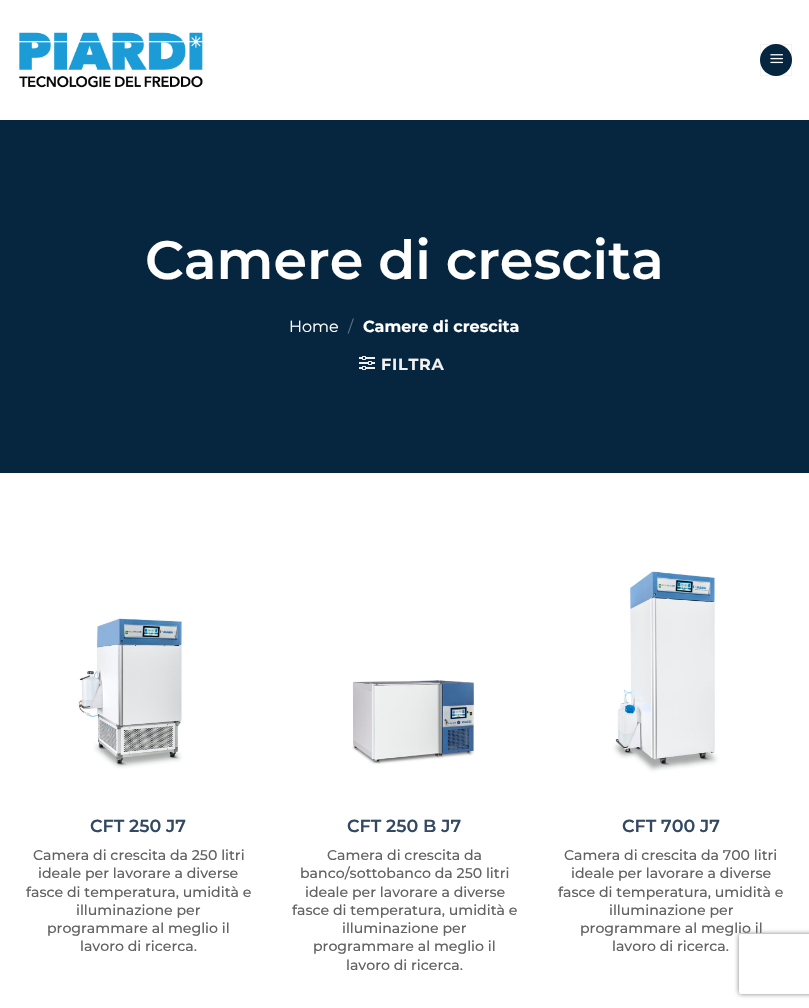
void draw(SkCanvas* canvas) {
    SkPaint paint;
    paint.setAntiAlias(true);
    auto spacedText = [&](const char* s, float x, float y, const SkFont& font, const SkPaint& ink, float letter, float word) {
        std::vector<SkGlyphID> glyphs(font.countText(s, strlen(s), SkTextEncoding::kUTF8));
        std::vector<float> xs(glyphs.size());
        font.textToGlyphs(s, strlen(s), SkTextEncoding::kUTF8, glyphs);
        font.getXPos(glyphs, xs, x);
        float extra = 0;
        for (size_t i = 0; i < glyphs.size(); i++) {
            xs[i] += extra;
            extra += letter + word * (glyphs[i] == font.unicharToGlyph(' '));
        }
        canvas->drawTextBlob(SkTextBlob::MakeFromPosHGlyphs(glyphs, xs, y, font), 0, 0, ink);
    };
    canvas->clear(0xFFFFFFFF);
    canvas->drawImageRect(SkImages::DeferredFromEncodedData(SkData::MakeFromFileName("img1.png")), SkRect::MakeXYWH(19, 32, 184, 56), SkSamplingOptions());
    paint.setColor(0xFF06253E);
    canvas->drawCircle(776, 60, 16, paint);
    paint.setStyle(SkPaint::kStroke_Style);
    paint.setStrokeWidth(1);
    paint.setColor(0x0D000000);
    canvas->drawRect(SkRect::MakeXYWH(760.5f, 44.5f, 31, 31), paint);
    canvas->drawImageRect(SkImages::DeferredFromEncodedData(SkData::MakeFromFileName("img2.png")), SkRect::MakeXYWH(770, 54, 13, 10), SkSamplingOptions());
    paint.setStyle(SkPaint::kFill_Style);
    paint.setColor(0xFF06253E);
    canvas->drawRect(SkRect::MakeXYWH(0, 120, 809, 353), paint);
    SkFont font1(fontMgr->matchFamilyStyle("Montserrat", SkFontStyle(600, SkFontStyle::kNormal_Width, SkFontStyle::kUpright_Slant)), 54);
    font1.setSubpixel(true);
    paint.setColor(0xFFFFFFFF);
    canvas->drawString("Camere di crescita", 145, 279, font1, paint);
    SkFont font2(fontMgr->matchFamilyStyle("Montserrat", SkFontStyle::Normal()), 16);
    font2.setSubpixel(true);
    canvas->drawString("Home", 289, 332, font2, paint);
    paint.setColor(0xFF5D7182);
    canvas->drawString("/", 348, 332, font2, paint);
    SkFont font3(fontMgr->matchFamilyStyle("Montserrat", SkFontStyle::Bold()), 16);
    font3.setSubpixel(true);
    paint.setColor(0xFFFFFFFF);
    canvas->drawString("Camere di crescita", 363, 332, font3, paint);
    canvas->drawImageRect(SkImages::DeferredFromEncodedData(SkData::MakeFromFileName("img3.png")), SkRect::MakeXYWH(359, 356, 16, 14), SkSamplingOptions());
    paint.setColor(0xFFF1F1F1);
    spacedText("FILTRA", 381, 370, font3, paint, 0.75f, 0);
    canvas->drawImageRect(SkImages::DeferredFromEncodedData(SkData::MakeFromFileName("img4.png")), SkRect::MakeXYWH(78, 617, 105, 152), SkSamplingOptions());
    SkFont font4(fontMgr->matchFamilyStyle("Montserrat", SkFontStyle(600, SkFontStyle::kNormal_Width, SkFontStyle::kUpright_Slant)), 17.5f);
    font4.setSubpixel(true);
    paint.setColor(0xFF334862);
    canvas->drawString("CFT 250 J7", 90, 832, font4, paint);
    SkFont font5(fontMgr->matchFamilyStyle("Montserrat", SkFontStyle(500, SkFontStyle::kNormal_Width, SkFontStyle::kUpright_Slant)), 14.1f);
    font5.setSubpixel(true);
    paint.setColor(0xFF626262);
    canvas->drawString("Camera di crescita da 250 litri", 33, 860, font5, paint);
    canvas->drawString("ideale per lavorare a diverse", 38, 878, font5, paint);
    canvas->drawString("fasce di temperatura, umidità e", 26, 897, font5, paint);
    canvas->drawString("illuminazione per", 76, 915, font5, paint);
    canvas->drawString("programmare al meglio il", 47, 933, font5, paint);
    canvas->drawString("lavoro di ricerca.", 80, 951, font5, paint);
    canvas->drawImageRect(SkImages::DeferredFromEncodedData(SkData::MakeFromFileName("img5.png")), SkRect::MakeXYWH(352, 680, 123, 85), SkSamplingOptions());
    paint.setColor(0xFF334862);
    canvas->drawString("CFT 250 B J7", 347, 832, font4, paint);
    paint.setColor(0xFF626262);
    canvas->drawString("Camera di crescita da", 327, 860, font5, paint);
    canvas->drawString("banco/sottobanco da 250 litri", 300, 878, font5, paint);
    canvas->drawString("ideale per lavorare a diverse", 305, 897, font5, paint);
    canvas->drawString("fasce di temperatura, umidità e", 292, 915, font5, paint);
    canvas->drawString("illuminazione per", 342, 933, font5, paint);
    canvas->drawString("programmare al meglio il", 313, 951, font5, paint);
    canvas->drawString("lavoro di ricerca.", 346, 970, font5, paint);
    canvas->drawImageRect(SkImages::DeferredFromEncodedData(SkData::MakeFromFileName("img6.png")), SkRect::MakeXYWH(612, 571, 107, 202), SkSamplingOptions());
    paint.setColor(0xFF334862);
    canvas->drawString("CFT 700 J7", 622, 832, font4, paint);
    paint.setColor(0xFF626262);
    canvas->drawString("Camera di crescita da 700 litri", 564, 860, font5, paint);
    canvas->drawString("ideale per lavorare a diverse", 571, 878, font5, paint);
    canvas->drawString("fasce di temperatura, umidità e", 558, 897, font5, paint);
    canvas->drawString("illuminazione per", 609, 915, font5, paint);
    canvas->drawString("programmare al meglio il", 580, 933, font5, paint);
    canvas->drawString("lavoro di ricerca.", 612, 951, font5, paint);
    canvas->save();
    canvas->clipPath(SkPathBuilder(SkPathFillType::kEvenOdd).moveTo(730, 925).lineTo(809, 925).lineTo(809, 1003).lineTo(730, 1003).close().moveTo(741, 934).lineTo(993, 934).cubicTo(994, 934, 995, 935, 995, 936).lineTo(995, 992).cubicTo(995, 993, 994, 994, 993, 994).lineTo(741, 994).cubicTo(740, 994, 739, 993, 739, 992).lineTo(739, 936).cubicTo(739, 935, 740, 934, 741, 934).close().detach(), true);
    paint.setColor(0xFF808080);
    paint.setMaskFilter(SkMaskFilter::MakeBlur(kNormal_SkBlurStyle, 2.5f));
    canvas->drawRoundRect(SkRect::MakeXYWH(739, 934, 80, 60), 2, 2, paint);
    paint.setMaskFilter(nullptr);
    canvas->restore();
}
